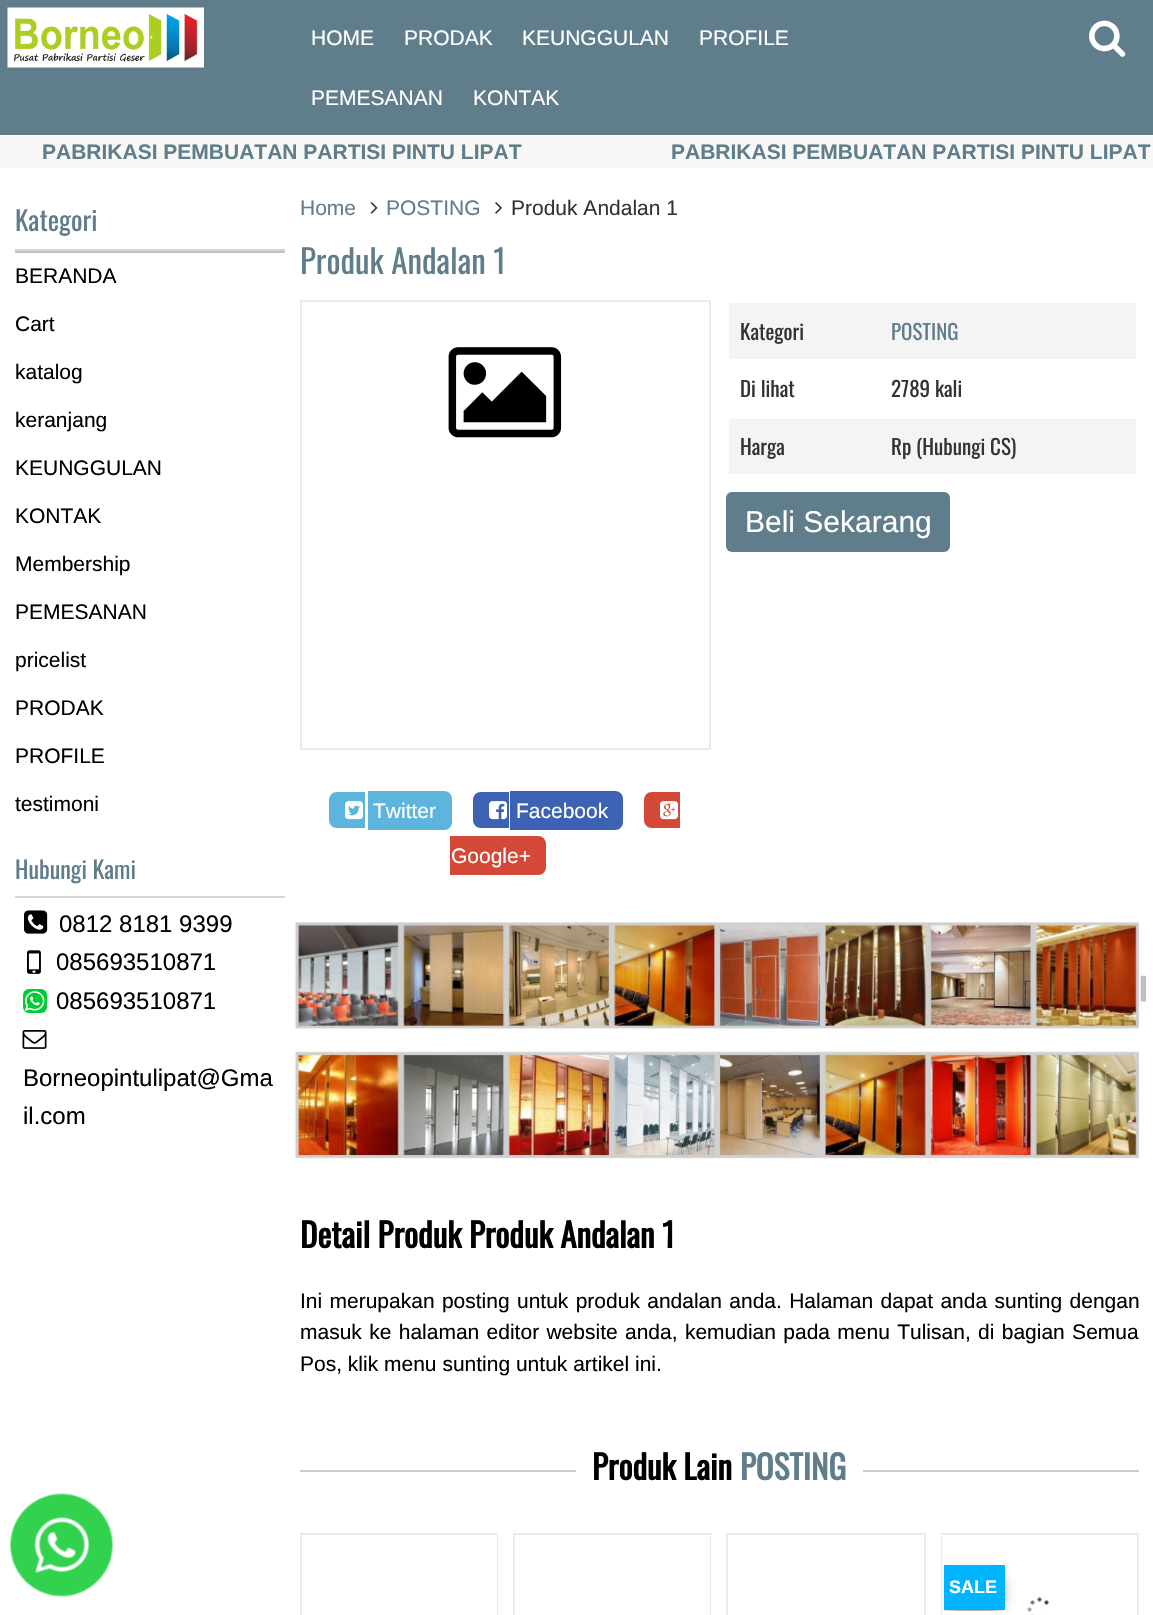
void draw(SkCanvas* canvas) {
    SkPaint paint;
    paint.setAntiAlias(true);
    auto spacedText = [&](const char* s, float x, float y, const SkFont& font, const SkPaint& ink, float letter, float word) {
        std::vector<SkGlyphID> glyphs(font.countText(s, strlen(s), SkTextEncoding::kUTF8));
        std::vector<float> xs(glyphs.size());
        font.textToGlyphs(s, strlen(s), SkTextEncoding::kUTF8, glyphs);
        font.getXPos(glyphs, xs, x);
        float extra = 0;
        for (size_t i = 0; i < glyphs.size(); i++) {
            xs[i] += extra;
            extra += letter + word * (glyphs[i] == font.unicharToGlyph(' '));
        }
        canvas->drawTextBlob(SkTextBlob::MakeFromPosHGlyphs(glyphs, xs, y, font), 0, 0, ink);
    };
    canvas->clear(0xFFFFFFFF);
    paint.setColor(0xFF607D8B);
    canvas->drawRect(SkRect::MakeXYWH(0, 0, 1153, 135), paint);
    canvas->drawImageRect(SkImages::DeferredFromEncodedData(SkData::MakeFromFileName("img1.png")), SkRect::MakeXYWH(7, 7, 197, 61), SkSamplingOptions());
    SkFont font1(fontMgr->matchFamilyStyle("Liberation Sans", SkFontStyle::Normal()), 21);
    font1.setSubpixel(true);
    paint.setColor(0xFFFFFFFF);
    canvas->drawString("HOME", 311, 45, font1, paint);
    canvas->drawString("PRODAK", 404, 45, font1, paint);
    canvas->drawString("KEUNGGULAN", 522, 45, font1, paint);
    canvas->drawString("PROFILE", 699, 45, font1, paint);
    canvas->drawString("PEMESANAN", 311, 105, font1, paint);
    canvas->drawString("KONTAK", 473, 105, font1, paint);
    canvas->drawImageRect(SkImages::DeferredFromEncodedData(SkData::MakeFromFileName("img2.png")), SkRect::MakeXYWH(1089, 20, 37, 37), SkSamplingOptions());
    paint.setColor(0xFFF8F9F6);
    canvas->drawRect(SkRect::MakeXYWH(0, 135, 1153, 33), paint);
    SkFont font2(fontMgr->matchFamilyStyle("Liberation Sans", SkFontStyle::Bold()), 21);
    font2.setSubpixel(true);
    paint.setColor(0xFF607D8B);
    canvas->drawString("PABRIKASI PEMBUATAN PARTISI PINTU LIPAT", 42, 159, font2, paint);
    canvas->drawString("PABRIKASI PEMBUATAN PARTISI PINTU LIPAT", 671, 159, font2, paint);
    paint.setColor(0xFFD4D4D4);
    canvas->drawRect(SkRect::MakeXYWH(15, 249, 270, 2), paint);
    SkFont font3(fontMgr->matchFamilyStyle("Oswald", SkFontStyle::Normal()), 27);
    font3.setSubpixel(true);
    paint.setColor(0xFF607D8B);
    canvas->drawString("Kategori", 15, 231, font3, paint);
    paint.setColor(0xFFC3C3C3);
    canvas->drawRect(SkRect::MakeXYWH(15, 251, 270, 2), paint);
    paint.setColor(0xFF000000);
    canvas->drawString("BERANDA", 15, 283, font1, paint);
    canvas->drawString("Cart", 15, 331, font1, paint);
    canvas->drawString("katalog", 15, 379, font1, paint);
    canvas->drawString("keranjang", 15, 427, font1, paint);
    canvas->drawString("KEUNGGULAN", 15, 475, font1, paint);
    canvas->drawString("KONTAK", 15, 523, font1, paint);
    canvas->drawString("Membership", 15, 571, font1, paint);
    canvas->drawString("PEMESANAN", 15, 619, font1, paint);
    canvas->drawString("pricelist", 15, 667, font1, paint);
    canvas->drawString("PRODAK", 15, 715, font1, paint);
    canvas->drawString("PROFILE", 15, 763, font1, paint);
    canvas->drawString("testimoni", 15, 811, font1, paint);
    paint.setColor(0xFFD4D4D4);
    canvas->drawRect(SkRect::MakeXYWH(15, 896, 270, 2), paint);
    SkFont font4(fontMgr->matchFamilyStyle("Oswald", SkFontStyle::Normal()), 24);
    font4.setSubpixel(true);
    paint.setColor(0xFF607D8B);
    canvas->drawString("Hubungi Kami", 15, 879, font4, paint);
    canvas->drawImageRect(SkImages::DeferredFromEncodedData(SkData::MakeFromFileName("img3.png")), SkRect::MakeXYWH(24, 910, 24, 24), SkSamplingOptions());
    SkFont font5(fontMgr->matchFamilyStyle("Liberation Sans", SkFontStyle::Normal()), 24);
    font5.setSubpixel(true);
    paint.setColor(0xFF000000);
    canvas->drawString("0812 8181 9399", 59, 932, font5, paint);
    canvas->drawImageRect(SkImages::DeferredFromEncodedData(SkData::MakeFromFileName("img4.png")), SkRect::MakeXYWH(27, 950, 14, 24), SkSamplingOptions());
    canvas->drawString("085693510871", 56, 970, font5, paint);
    paint.setColor(0xFF00CC33);
    canvas->drawRoundRect(SkRect::MakeXYWH(23, 989, 24, 24), 6, 6, paint);
    canvas->drawImageRect(SkImages::DeferredFromEncodedData(SkData::MakeFromFileName("img5.png")), SkRect::MakeXYWH(24, 991, 21, 20), SkSamplingOptions());
    paint.setColor(0xFF000000);
    canvas->drawString("085693510871", 56, 1009, font5, paint);
    canvas->drawImageRect(SkImages::DeferredFromEncodedData(SkData::MakeFromFileName("img6.png")), SkRect::MakeXYWH(22, 1030, 25, 19), SkSamplingOptions());
    canvas->drawString("Borneopintulipat@Gma", 23, 1086, font5, paint);
    canvas->drawString("il.com", 23, 1124, font5, paint);
    paint.setColor(0xFF607D8B);
    canvas->drawString("Home", 300, 215, font1, paint);
    canvas->drawImageRect(SkImages::DeferredFromEncodedData(SkData::MakeFromFileName("img7.png")), SkRect::MakeXYWH(370, 202, 8, 12), SkSamplingOptions());
    canvas->drawString("POSTING", 386, 215, font1, paint);
    canvas->drawImageRect(SkImages::DeferredFromEncodedData(SkData::MakeFromFileName("img8.png")), SkRect::MakeXYWH(495, 202, 7, 12), SkSamplingOptions());
    paint.setColor(0xFF333333);
    canvas->drawString("Produk Andalan 1", 511, 215, font1, paint);
    SkFont font6(fontMgr->matchFamilyStyle("Oswald", SkFontStyle::Normal()), 33);
    font6.setSubpixel(true);
    paint.setColor(0xFF607D8B);
    canvas->drawString("Produk Andalan 1", 300, 274, font6, paint);
    paint.setColor(0xFFF4F4F4);
    canvas->drawRect(SkRect::MakeXYWH(729, 303, 407, 56), paint);
    SkFont font7(fontMgr->matchFamilyStyle("Oswald", SkFontStyle::Normal()), 21);
    font7.setSubpixel(true);
    paint.setColor(0xFF333333);
    canvas->drawString("Kategori", 740, 340, font7, paint);
    paint.setColor(0xFF607D8B);
    canvas->drawString("POSTING", 891, 340, font7, paint);
    paint.setColor(0xFF333333);
    canvas->drawString("Di lihat", 740, 397, font7, paint);
    canvas->drawString("2789 kali", 891, 397, font7, paint);
    paint.setColor(0xFFF4F4F4);
    canvas->drawRect(SkRect::MakeXYWH(729, 419, 407, 55), paint);
    paint.setColor(0xFF333333);
    canvas->drawString("Harga", 740, 455, font7, paint);
    canvas->drawString("Rp (Hubungi CS)", 891, 455, font7, paint);
    paint.setColor(0xFF607D8B);
    canvas->drawRoundRect(SkRect::MakeXYWH(726, 492, 224, 60), 6, 6, paint);
    SkFont font8(fontMgr->matchFamilyStyle("Liberation Sans", SkFontStyle::Normal()), 30);
    font8.setSubpixel(true);
    paint.setColor(0xFFFFFFFF);
    canvas->drawString("Beli Sekarang", 745, 532, font8, paint);
    paint.setStyle(SkPaint::kStroke_Style);
    paint.setStrokeWidth(2);
    paint.setColor(0xFFEBEBEB);
    canvas->drawRect(SkRect::MakeXYWH(301, 301, 409, 448), paint);
    canvas->drawImageRect(SkImages::DeferredFromEncodedData(SkData::MakeFromFileName("img9.png")), SkRect::MakeXYWH(448, 347, 114, 91), SkSamplingOptions());
    paint.setStyle(SkPaint::kFill_Style);
    paint.setColor(0xFF5DB5DE);
    canvas->drawPath(SkPathBuilder().moveTo(337, 792).lineTo(365, 792).lineTo(365, 828).lineTo(337, 828).cubicTo(332.5f, 828, 329, 824.5f, 329, 820).lineTo(329, 800).cubicTo(329, 795.5f, 332.5f, 792, 337, 792).close().detach(), paint);
    canvas->drawPath(SkPathBuilder().moveTo(368, 791).lineTo(444, 791).cubicTo(448.5f, 791, 452, 794.5f, 452, 799).lineTo(452, 822).cubicTo(452, 826.5f, 448.5f, 830, 444, 830).lineTo(368, 830).close().detach(), paint);
    canvas->drawImageRect(SkImages::DeferredFromEncodedData(SkData::MakeFromFileName("img10.png")), SkRect::MakeXYWH(345, 801, 18, 19), SkSamplingOptions());
    paint.setColor(0xFFFFFFFF);
    canvas->drawString("Twitter", 373, 818, font1, paint);
    paint.setColor(0xFF3D62B3);
    canvas->drawPath(SkPathBuilder().moveTo(481, 792).lineTo(509, 792).lineTo(509, 828).lineTo(481, 828).cubicTo(476.5f, 828, 473, 824.5f, 473, 820).lineTo(473, 800).cubicTo(473, 795.5f, 476.5f, 792, 481, 792).close().detach(), paint);
    canvas->drawPath(SkPathBuilder().moveTo(510, 791).lineTo(615, 791).cubicTo(619.5f, 791, 623, 794.5f, 623, 799).lineTo(623, 822).cubicTo(623, 826.5f, 619.5f, 830, 615, 830).lineTo(510, 830).close().detach(), paint);
    canvas->drawImageRect(SkImages::DeferredFromEncodedData(SkData::MakeFromFileName("img11.png")), SkRect::MakeXYWH(489, 801, 18, 19), SkSamplingOptions());
    paint.setColor(0xFFFFFFFF);
    canvas->drawString("Facebook", 516, 818, font1, paint);
    paint.setColor(0xFFD34836);
    canvas->drawPath(SkPathBuilder().moveTo(652, 792).lineTo(680, 792).lineTo(680, 828).lineTo(652, 828).cubicTo(647.5f, 828, 644, 824.5f, 644, 820).lineTo(644, 800).cubicTo(644, 795.5f, 647.5f, 792, 652, 792).close().detach(), paint);
    canvas->drawPath(SkPathBuilder().moveTo(450, 836).lineTo(538, 836).cubicTo(542.5f, 836, 546, 839.5f, 546, 844).lineTo(546, 867).cubicTo(546, 871.5f, 542.5f, 875, 538, 875).lineTo(450, 875).close().detach(), paint);
    canvas->drawImageRect(SkImages::DeferredFromEncodedData(SkData::MakeFromFileName("img12.png")), SkRect::MakeXYWH(660, 801, 18, 19), SkSamplingOptions());
    paint.setColor(0xFFFFFFFF);
    canvas->drawString("Google+", 451, 863, font1, paint);
    canvas->drawImageRect(SkImages::DeferredFromEncodedData(SkData::MakeFromFileName("img13.png")), SkRect::MakeXYWH(292, 922, 854, 237), SkSamplingOptions());
    SkFont font9(fontMgr->matchFamilyStyle("Oswald", SkFontStyle::Bold()), 33);
    font9.setSubpixel(true);
    paint.setColor(0xFF000000);
    canvas->drawString("Detail Produk Produk Andalan 1", 300, 1248, font9, paint);
    spacedText("Ini merupakan posting untuk produk andalan anda. Halaman dapat anda sunting dengan", 300, 1308, font1, paint, 0, 1.5f);
    spacedText("masuk ke halaman editor website anda, kemudian pada menu Tulisan, di bagian Semua", 300, 1339, font1, paint, 0, 1.5f);
    canvas->drawString("Pos, klik menu sunting untuk artikel ini.", 300, 1371, font1, paint);
    paint.setColor(0xFFCCCCCC);
    canvas->drawRect(SkRect::MakeXYWH(300, 1470, 276, 2), paint);
    paint.setColor(0xFF000000);
    canvas->drawString("Produk Lain", 592, 1480, font9, paint);
    paint.setColor(0xFF607D8B);
    canvas->drawString("POSTING", 740, 1480, font9, paint);
    paint.setColor(0xFFCCCCCC);
    canvas->drawRect(SkRect::MakeXYWH(863, 1470, 276, 2), paint);
    paint.setStyle(SkPaint::kStroke_Style);
    paint.setColor(0xFFEBEBEB);
    canvas->drawRect(SkRect::MakeXYWH(301, 1534, 196, 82), paint);
    paint.setStyle(SkPaint::kFill_Style);
    paint.setColor(0xFFFFFFFF);
    canvas->drawRect(SkRect::MakeXYWH(496, 1535, 1, 80), paint);
    paint.setStyle(SkPaint::kStroke_Style);
    paint.setColor(0xFFEBEBEB);
    canvas->drawRect(SkRect::MakeXYWH(514, 1534, 196, 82), paint);
    paint.setStyle(SkPaint::kFill_Style);
    paint.setColor(0xFFFFFFFF);
    canvas->drawRect(SkRect::MakeXYWH(709, 1535, 1, 80), paint);
    paint.setStyle(SkPaint::kStroke_Style);
    paint.setColor(0xFFEBEBEB);
    canvas->drawRect(SkRect::MakeXYWH(727, 1534, 198, 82), paint);
    canvas->drawRect(SkRect::MakeXYWH(942, 1534, 196, 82), paint);
    paint.setStyle(SkPaint::kFill_Style);
    paint.setColor(0xFFFFFFFF);
    canvas->drawRect(SkRect::MakeXYWH(942, 1535, 1, 80), paint);
    canvas->drawImageRect(SkImages::DeferredFromEncodedData(SkData::MakeFromFileName("img14.png")), SkRect::MakeXYWH(1027, 1597, 22, 18), SkSamplingOptions());
    canvas->save();
    canvas->clipRect(SkRect::MakeXYWH(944, 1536, 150, 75));
    paint.setColor(0xFF000000);
    paint.setMaskFilter(SkMaskFilter::MakeBlur(kNormal_SkBlurStyle, 7.5f));
    canvas->drawRect(SkRect::MakeXYWH(950, 1577, 48, 30), paint);
    paint.setMaskFilter(nullptr);
    canvas->restore();
    paint.setColor(0xFF00B4FF);
    canvas->drawRect(SkRect::MakeXYWH(944, 1565, 61, 45), paint);
    SkFont font10(fontMgr->matchFamilyStyle("Liberation Sans", SkFontStyle::Bold()), 18);
    font10.setSubpixel(true);
    paint.setColor(0xFFFFFFFF);
    canvas->drawString("SALE", 949, 1593, font10, paint);
    canvas->drawImageRect(SkImages::DeferredFromEncodedData(SkData::MakeFromFileName("img15.png")), SkRect::MakeXYWH(10, 1493, 103, 104), SkSamplingOptions());
}
